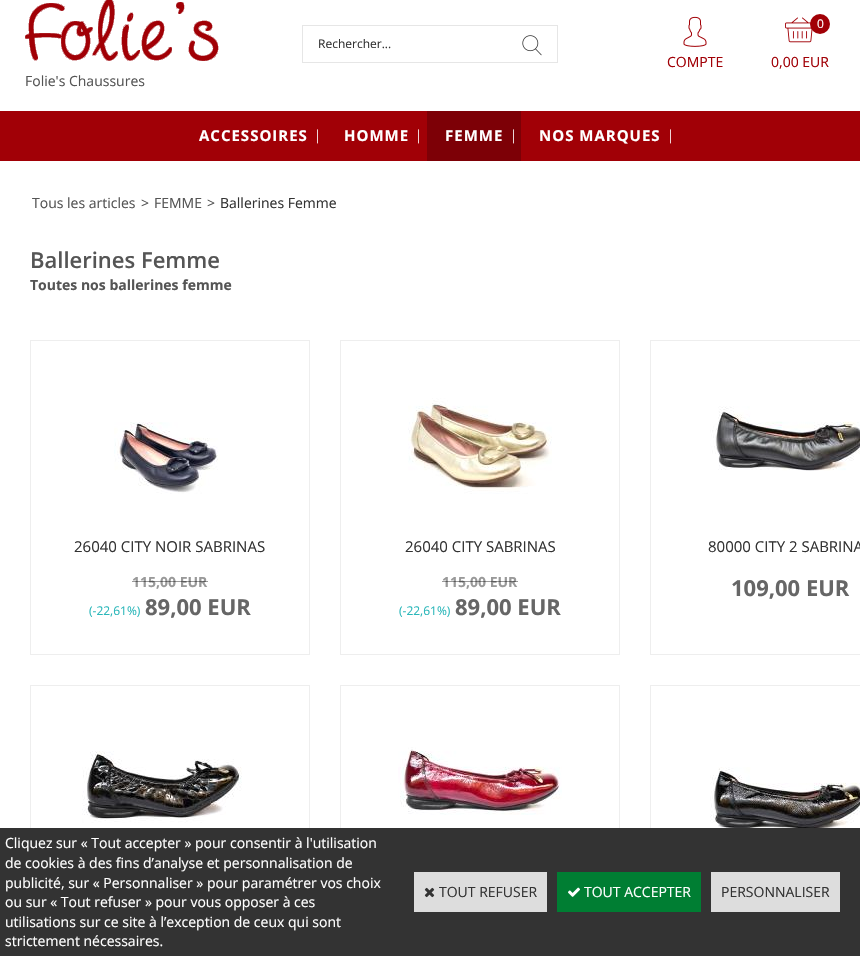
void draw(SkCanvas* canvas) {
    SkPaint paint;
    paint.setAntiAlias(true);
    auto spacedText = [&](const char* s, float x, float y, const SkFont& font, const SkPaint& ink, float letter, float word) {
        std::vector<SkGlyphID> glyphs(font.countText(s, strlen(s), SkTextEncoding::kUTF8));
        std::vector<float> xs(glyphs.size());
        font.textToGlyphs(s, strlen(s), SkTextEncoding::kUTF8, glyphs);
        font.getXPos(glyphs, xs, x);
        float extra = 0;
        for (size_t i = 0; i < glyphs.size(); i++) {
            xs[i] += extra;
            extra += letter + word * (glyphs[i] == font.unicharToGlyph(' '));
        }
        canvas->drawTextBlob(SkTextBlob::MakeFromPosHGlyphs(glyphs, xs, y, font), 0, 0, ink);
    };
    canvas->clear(0xFFFFFFFF);
    paint.setColor(0xFFE6E6E6);
    canvas->drawRect(SkRect::MakeXYWH(302, 25, 256, 1), paint);
    canvas->drawRect(SkRect::MakeXYWH(302, 62, 205, 1), paint);
    canvas->drawRect(SkRect::MakeXYWH(302, 25, 1, 38), paint);
    SkFont font1(fontMgr->matchFamilyStyle("Open Sans", SkFontStyle::Normal()), 12);
    font1.setSubpixel(true);
    paint.setColor(0xFF333333);
    canvas->drawString("Rechercher...", 318, 48, font1, paint);
    paint.setColor(0xFFE6E6E6);
    canvas->drawRect(SkRect::MakeXYWH(557, 25, 1, 38), paint);
    canvas->drawRect(SkRect::MakeXYWH(507, 62, 51, 1), paint);
    canvas->drawImageRect(SkImages::DeferredFromEncodedData(SkData::MakeFromFileName("img1.png")), SkRect::MakeXYWH(522, 35, 20, 21), SkSamplingOptions());
    canvas->drawImageRect(SkImages::DeferredFromEncodedData(SkData::MakeFromFileName("img2.png")), SkRect::MakeXYWH(683, 16, 24, 31), SkSamplingOptions());
    SkFont font2(fontMgr->matchFamilyStyle("Open Sans", SkFontStyle::Normal()), 14);
    font2.setSubpixel(true);
    paint.setColor(0xFFA10006);
    canvas->drawString("COMPTE", 667, 67, font2, paint);
    canvas->drawImageRect(SkImages::DeferredFromEncodedData(SkData::MakeFromFileName("img3.png")), SkRect::MakeXYWH(785, 17, 28, 26), SkSamplingOptions());
    canvas->drawCircle(820, 24, 10, paint);
    paint.setColor(0xFFFFFFFF);
    canvas->drawString("0", 817, 28, font1, paint);
    paint.setColor(0xFFA10006);
    canvas->drawString("0,00 EUR", 771, 67, font2, paint);
    canvas->drawImageRect(SkImages::DeferredFromEncodedData(SkData::MakeFromFileName("img4.png")), SkRect::MakeXYWH(25, 0, 194, 61), SkSamplingOptions());
    paint.setColor(0xFF555555);
    canvas->drawString("Folie's Chaussures", 25, 86, font2, paint);
    paint.setColor(0xFFA10006);
    canvas->drawRect(SkRect::MakeXYWH(0, 111, 860, 50), paint);
    SkFont font3(fontMgr->matchFamilyStyle("Open Sans", SkFontStyle::Bold()), 15);
    font3.setSubpixel(true);
    paint.setColor(0xFFFFFFFF);
    spacedText("ACCESSOIRES", 199, 141, font3, paint, 1, 0);
    SkFont font4(fontMgr->matchFamilyStyle("Liberation Serif", SkFontStyle::Normal()), 15);
    font4.setSubpixel(true);
    spacedText("|", 316, 140, font4, paint, 1, 0);
    spacedText("HOMME", 344, 141, font3, paint, 1, 0);
    spacedText("|", 417, 140, font4, paint, 1, 0);
    paint.setColor(0xFF7D0006);
    canvas->drawRect(SkRect::MakeXYWH(427, 111, 94, 50), paint);
    paint.setColor(0xFFFFFFFF);
    spacedText("FEMME", 445, 141, font3, paint, 1, 0);
    spacedText("|", 512, 140, font4, paint, 1, 0);
    spacedText("NOS MARQUES", 539, 141, font3, paint, 1, 0);
    spacedText("|", 669, 140, font4, paint, 1, 0);
    paint.setColor(0xFF555555);
    canvas->drawString("Tous les articles", 32, 208, font2, paint);
    canvas->drawString(">", 141, 208, font2, paint);
    canvas->drawString("FEMME", 154, 208, font2, paint);
    canvas->drawString(">", 207, 208, font2, paint);
    paint.setColor(0xFF333333);
    canvas->drawString("Ballerines Femme", 220, 208, font2, paint);
    SkFont font5(fontMgr->matchFamilyStyle("Open Sans", SkFontStyle(600, SkFontStyle::kNormal_Width, SkFontStyle::kUpright_Slant)), 22);
    font5.setSubpixel(true);
    paint.setColor(0xFF555555);
    canvas->drawString("Ballerines Femme", 30, 268, font5, paint);
    SkFont font6(fontMgr->matchFamilyStyle("Open Sans", SkFontStyle::Bold()), 14);
    font6.setSubpixel(true);
    canvas->drawString("Toutes nos ballerines femme", 30, 290, font6, paint);
    paint.setStyle(SkPaint::kStroke_Style);
    paint.setStrokeWidth(1);
    paint.setColor(0xFFEEEEEE);
    canvas->drawRect(SkRect::MakeXYWH(30.5f, 340.5f, 279, 314), paint);
    canvas->drawImageRect(SkImages::DeferredFromEncodedData(SkData::MakeFromFileName("img5.png")), SkRect::MakeXYWH(114, 422, 106, 72), SkSamplingOptions());
    SkFont font7(fontMgr->matchFamilyStyle("Open Sans", SkFontStyle::Normal()), 15);
    font7.setSubpixel(true);
    paint.setStyle(SkPaint::kFill_Style);
    paint.setColor(0xFF333333);
    canvas->drawString("26040 CITY NOIR SABRINAS", 74, 552, font7, paint);
    paint.setColor(0xFF999999);
    canvas->drawString("115,00 EUR", 132, 587, font6, paint);
    paint.setColor(0x66000000);
    canvas->drawRect(SkRect::MakeXYWH(132, 581, 76, 1), paint);
    paint.setColor(0xFF2BB7BA);
    canvas->drawString("(-22,61%)", 89, 615, font1, paint);
    SkFont font8(fontMgr->matchFamilyStyle("Open Sans", SkFontStyle::Bold()), 22);
    font8.setSubpixel(true);
    paint.setColor(0xFF666666);
    canvas->drawString("89,00 EUR", 145, 615, font8, paint);
    paint.setStyle(SkPaint::kStroke_Style);
    paint.setColor(0xFFEEEEEE);
    canvas->drawRect(SkRect::MakeXYWH(340.5f, 340.5f, 279, 314), paint);
    canvas->drawImageRect(SkImages::DeferredFromEncodedData(SkData::MakeFromFileName("img6.png")), SkRect::MakeXYWH(408, 398, 144, 96), SkSamplingOptions());
    paint.setStyle(SkPaint::kFill_Style);
    paint.setColor(0xFF333333);
    canvas->drawString("26040 CITY SABRINAS", 405, 552, font7, paint);
    paint.setColor(0xFF999999);
    canvas->drawString("115,00 EUR", 442, 587, font6, paint);
    paint.setColor(0x66000000);
    canvas->drawRect(SkRect::MakeXYWH(442, 581, 76, 1), paint);
    paint.setColor(0xFF2BB7BA);
    canvas->drawString("(-22,61%)", 399, 615, font1, paint);
    paint.setColor(0xFF666666);
    canvas->drawString("89,00 EUR", 455, 615, font8, paint);
    paint.setStyle(SkPaint::kStroke_Style);
    paint.setColor(0xFFEEEEEE);
    canvas->drawRect(SkRect::MakeXYWH(650.5f, 340.5f, 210, 314), paint);
    canvas->drawImageRect(SkImages::DeferredFromEncodedData(SkData::MakeFromFileName("img7.png")), SkRect::MakeXYWH(710, 406, 150, 65), SkSamplingOptions());
    paint.setStyle(SkPaint::kFill_Style);
    paint.setColor(0xFF333333);
    canvas->drawString("80000 CITY 2 SABRINA", 708, 552, font7, paint);
    paint.setColor(0xFF666666);
    canvas->drawString("109,00 EUR", 731, 596, font8, paint);
    paint.setStyle(SkPaint::kStroke_Style);
    paint.setColor(0xFFEEEEEE);
    canvas->drawRect(SkRect::MakeXYWH(30.5f, 685.5f, 279, 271), paint);
    canvas->drawImageRect(SkImages::DeferredFromEncodedData(SkData::MakeFromFileName("img8.png")), SkRect::MakeXYWH(82, 751, 160, 72), SkSamplingOptions());
    canvas->drawRect(SkRect::MakeXYWH(340.5f, 685.5f, 279, 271), paint);
    canvas->drawImageRect(SkImages::DeferredFromEncodedData(SkData::MakeFromFileName("img9.png")), SkRect::MakeXYWH(398, 747, 164, 68), SkSamplingOptions());
    canvas->drawRect(SkRect::MakeXYWH(650.5f, 685.5f, 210, 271), paint);
    canvas->drawImageRect(SkImages::DeferredFromEncodedData(SkData::MakeFromFileName("img10.png")), SkRect::MakeXYWH(710, 767, 150, 61), SkSamplingOptions());
    paint.setStyle(SkPaint::kFill_Style);
    paint.setColor(0xFF333333);
    canvas->drawRect(SkRect::MakeXYWH(0, 828, 860, 128), paint);
    paint.setColor(0xFFFFFFFF);
    canvas->drawString("Cliquez sur « Tout accepter » pour consentir à l'utilisation", 5, 848, font2, paint);
    canvas->drawString("de cookies à des fins d’analyse et personnalisation de", 5, 868, font2, paint);
    canvas->drawString("publicité, sur « Personnaliser » pour paramétrer vos choix", 5, 888, font2, paint);
    canvas->drawString("ou sur « Tout refuser » pour vous opposer à ces", 5, 907, font2, paint);
    canvas->drawString("utilisations sur ce site à l’exception de ceux qui sont", 5, 927, font2, paint);
    canvas->drawString("strictement nécessaires.", 5, 946, font2, paint);
    paint.setColor(0xFFDDDDDD);
    canvas->drawRect(SkRect::MakeXYWH(414, 872, 133, 40), paint);
    canvas->drawImageRect(SkImages::DeferredFromEncodedData(SkData::MakeFromFileName("img11.png")), SkRect::MakeXYWH(424, 887, 11, 11), SkSamplingOptions());
    paint.setColor(0xFF333333);
    canvas->drawString("TOUT REFUSER", 439, 897, font2, paint);
    paint.setColor(0xFF007E33);
    canvas->drawRect(SkRect::MakeXYWH(557, 872, 144, 40), paint);
    canvas->drawImageRect(SkImages::DeferredFromEncodedData(SkData::MakeFromFileName("img12.png")), SkRect::MakeXYWH(568, 887, 12, 10), SkSamplingOptions());
    paint.setColor(0xFFFFFFFF);
    canvas->drawString("TOUT ACCEPTER", 584, 897, font2, paint);
    paint.setColor(0xFFDDDDDD);
    canvas->drawRect(SkRect::MakeXYWH(711, 872, 129, 40), paint);
    paint.setColor(0xFF333333);
    canvas->drawString("PERSONNALISER", 721, 897, font2, paint);
}
